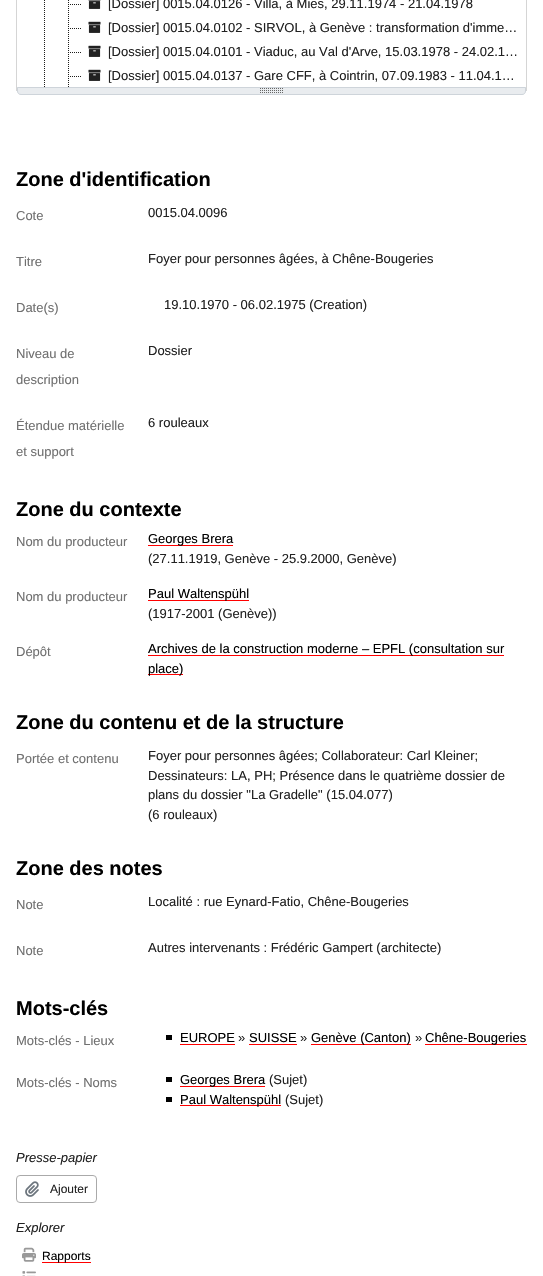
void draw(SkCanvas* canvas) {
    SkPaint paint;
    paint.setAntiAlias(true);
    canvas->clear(0xFFFFFFFF);
    paint.setStyle(SkPaint::kStroke_Style);
    paint.setStrokeWidth(1);
    paint.setColor(0xFFD5D5D5);
    canvas->drawRect(SkRect::MakeXYWH(16.5f, -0.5f, 510, 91), paint);
    canvas->drawImageRect(SkImages::DeferredFromEncodedData(SkData::MakeFromFileName("img1.png")), SkRect::MakeXYWH(44, 0, 1, 87), SkSamplingOptions());
    canvas->drawImageRect(SkImages::DeferredFromEncodedData(SkData::MakeFromFileName("img2.png")), SkRect::MakeXYWH(68, 0, 1, 15), SkSamplingOptions());
    canvas->drawImageRect(SkImages::DeferredFromEncodedData(SkData::MakeFromFileName("img3.png")), SkRect::MakeXYWH(70, 4, 11, 1), SkSamplingOptions());
    canvas->drawImageRect(SkImages::DeferredFromEncodedData(SkData::MakeFromFileName("img4.png")), SkRect::MakeXYWH(88, 0, 13, 9), SkSamplingOptions());
    SkFont font1(fontMgr->matchFamilyStyle("Liberation Sans", SkFontStyle::Normal()), 13);
    font1.setSubpixel(true);
    paint.setStyle(SkPaint::kFill_Style);
    paint.setColor(0xFF212121);
    canvas->drawString("[Dossier] 0015.04.0126 - Villa, à Mies, 29.11.1974 - 21.04.1978", 108, 8, font1, paint);
    canvas->drawImageRect(SkImages::DeferredFromEncodedData(SkData::MakeFromFileName("img5.png")), SkRect::MakeXYWH(68, 16, 1, 23), SkSamplingOptions());
    canvas->drawImageRect(SkImages::DeferredFromEncodedData(SkData::MakeFromFileName("img3.png")), SkRect::MakeXYWH(70, 28, 11, 1), SkSamplingOptions());
    canvas->drawImageRect(SkImages::DeferredFromEncodedData(SkData::MakeFromFileName("img6.png")), SkRect::MakeXYWH(88, 21, 13, 12), SkSamplingOptions());
    canvas->drawString("[Dossier] 0015.04.0102 - SIRVOL, à Genève : transformation d'imme…", 108, 32, font1, paint);
    canvas->drawImageRect(SkImages::DeferredFromEncodedData(SkData::MakeFromFileName("img5.png")), SkRect::MakeXYWH(68, 40, 1, 23), SkSamplingOptions());
    canvas->drawImageRect(SkImages::DeferredFromEncodedData(SkData::MakeFromFileName("img3.png")), SkRect::MakeXYWH(70, 52, 11, 1), SkSamplingOptions());
    canvas->drawImageRect(SkImages::DeferredFromEncodedData(SkData::MakeFromFileName("img6.png")), SkRect::MakeXYWH(88, 45, 13, 12), SkSamplingOptions());
    canvas->drawString("[Dossier] 0015.04.0101 - Viaduc, au Val d'Arve, 15.03.1978 - 24.02.1…", 108, 56, font1, paint);
    canvas->drawImageRect(SkImages::DeferredFromEncodedData(SkData::MakeFromFileName("img5.png")), SkRect::MakeXYWH(68, 64, 1, 23), SkSamplingOptions());
    canvas->drawImageRect(SkImages::DeferredFromEncodedData(SkData::MakeFromFileName("img3.png")), SkRect::MakeXYWH(70, 76, 11, 1), SkSamplingOptions());
    canvas->drawImageRect(SkImages::DeferredFromEncodedData(SkData::MakeFromFileName("img6.png")), SkRect::MakeXYWH(88, 69, 13, 12), SkSamplingOptions());
    canvas->drawString("[Dossier] 0015.04.0137 - Gare CFF, à Cointrin, 07.09.1983 - 11.04.1…", 108, 80, font1, paint);
    paint.setColor(0xFFE9ECEF);
    canvas->drawPath(SkPathBuilder().moveTo(17, 87).lineTo(526, 87).lineTo(526, 91).cubicTo(526, 93, 524, 95, 522, 95).lineTo(21, 95).cubicTo(19, 95, 17, 93, 17, 91).close().detach(), paint);
    canvas->drawImageRect(SkImages::DeferredFromEncodedData(SkData::MakeFromFileName("img7.png")), SkRect::MakeXYWH(260, 88, 23, 5), SkSamplingOptions());
    paint.setStyle(SkPaint::kStroke_Style);
    paint.setColor(0xFFCED4DA);
    canvas->drawPath(SkPathBuilder().moveTo(17.5f, 87.5f).lineTo(525.5f, 87.5f).lineTo(525.5f, 91).cubicTo(525.5f, 93, 524, 94.5f, 522, 94.5f).lineTo(21, 94.5f).cubicTo(19, 94.5f, 17.5f, 93, 17.5f, 91).close().detach(), paint);
    SkFont font2(fontMgr->matchFamilyStyle("Liberation Sans", SkFontStyle::Bold()), 20);
    font2.setSubpixel(true);
    paint.setStyle(SkPaint::kFill_Style);
    paint.setColor(0xFF000000);
    canvas->drawString("Zone d'identification", 16, 186, font2, paint);
    paint.setColor(0xFF707070);
    canvas->drawString("Cote", 16, 220, font1, paint);
    paint.setColor(0xFF212121);
    canvas->drawString("0015.04.0096", 148, 217, font1, paint);
    paint.setColor(0xFF707070);
    canvas->drawString("Titre", 16, 266, font1, paint);
    paint.setColor(0xFF212121);
    canvas->drawString("Foyer pour personnes âgées, à Chêne-Bougeries", 148, 263, font1, paint);
    paint.setColor(0xFF707070);
    canvas->drawString("Date(s)", 16, 312, font1, paint);
    paint.setColor(0xFF212121);
    canvas->drawString("19.10.1970 - 06.02.1975 (Creation)", 164, 309, font1, paint);
    paint.setColor(0xFF707070);
    canvas->drawString("Niveau de", 16, 358, font1, paint);
    canvas->drawString("description", 16, 384, font1, paint);
    paint.setColor(0xFF212121);
    canvas->drawString("Dossier", 148, 355, font1, paint);
    paint.setColor(0xFF707070);
    canvas->drawString("Étendue matérielle", 16, 430, font1, paint);
    canvas->drawString("et support", 16, 456, font1, paint);
    paint.setColor(0xFF212121);
    canvas->drawString("6 rouleaux", 148, 427, font1, paint);
    paint.setColor(0xFF000000);
    canvas->drawString("Zone du contexte", 16, 516, font2, paint);
    paint.setColor(0xFF707070);
    canvas->drawString("Nom du producteur", 16, 546, font1, paint);
    paint.setColor(0xFFFF0000);
    canvas->drawRect(SkRect::MakeXYWH(148, 545, 85, 1), paint);
    paint.setColor(0xFF000000);
    canvas->drawString("Georges Brera", 148, 543, font1, paint);
    paint.setColor(0xFF212121);
    canvas->drawString("(27.11.1919, Genève - 25.9.2000, Genève)", 148, 563, font1, paint);
    paint.setColor(0xFF707070);
    canvas->drawString("Nom du producteur", 16, 601, font1, paint);
    paint.setColor(0xFFFF0000);
    canvas->drawRect(SkRect::MakeXYWH(148, 600, 101, 1), paint);
    paint.setColor(0xFF000000);
    canvas->drawString("Paul Waltenspühl", 148, 598, font1, paint);
    paint.setColor(0xFF212121);
    canvas->drawString("(1917-2001 (Genève))", 148, 618, font1, paint);
    paint.setColor(0xFF707070);
    canvas->drawString("Dépôt", 16, 656, font1, paint);
    paint.setColor(0xFFFF0000);
    canvas->drawRect(SkRect::MakeXYWH(148, 655, 356, 1), paint);
    paint.setColor(0xFF000000);
    canvas->drawString("Archives de la construction moderne – EPFL (consultation sur", 148, 653, font1, paint);
    paint.setColor(0xFFFF0000);
    canvas->drawRect(SkRect::MakeXYWH(148, 674, 35, 1), paint);
    paint.setColor(0xFF000000);
    canvas->drawString("place)", 148, 673, font1, paint);
    canvas->drawString("Zone du contenu et de la structure", 16, 729, font2, paint);
    paint.setColor(0xFF707070);
    canvas->drawString("Portée et contenu", 16, 763, font1, paint);
    paint.setColor(0xFF212121);
    canvas->drawString("Foyer pour personnes âgées; Collaborateur: Carl Kleiner;", 148, 760, font1, paint);
    canvas->drawString("Dessinateurs: LA, PH; Présence dans le quatrième dossier de", 148, 780, font1, paint);
    canvas->drawString("plans du dossier \"La Gradelle\" (15.04.077)", 148, 799, font1, paint);
    canvas->drawString("(6 rouleaux)", 148, 819, font1, paint);
    paint.setColor(0xFF000000);
    canvas->drawString("Zone des notes", 16, 875, font2, paint);
    paint.setColor(0xFF707070);
    canvas->drawString("Note", 16, 909, font1, paint);
    paint.setColor(0xFF212121);
    canvas->drawString("Localité : rue Eynard-Fatio, Chêne-Bougeries", 148, 906, font1, paint);
    paint.setColor(0xFF707070);
    canvas->drawString("Note", 16, 955, font1, paint);
    paint.setColor(0xFF212121);
    canvas->drawString("Autres intervenants : Frédéric Gampert (architecte)", 148, 952, font1, paint);
    paint.setColor(0xFF000000);
    canvas->drawString("Mots-clés", 16, 1015, font2, paint);
    paint.setColor(0xFF707070);
    canvas->drawString("Mots-clés - Lieux", 16, 1045, font1, paint);
    paint.setColor(0xFF000000);
    canvas->drawRect(SkRect::MakeXYWH(166, 1035, 6, 5), paint);
    canvas->drawString("EUROPE", 180, 1042, font1, paint);
    paint.setColor(0xFFFF0000);
    canvas->drawRect(SkRect::MakeXYWH(180, 1044, 55, 1), paint);
    paint.setColor(0xFF212121);
    canvas->drawString("»", 238, 1042, font1, paint);
    paint.setColor(0xFF000000);
    canvas->drawString("SUISSE", 249, 1042, font1, paint);
    paint.setColor(0xFFFF0000);
    canvas->drawRect(SkRect::MakeXYWH(249, 1044, 48, 1), paint);
    paint.setColor(0xFF212121);
    canvas->drawString("»", 300, 1042, font1, paint);
    paint.setColor(0xFFFF0000);
    canvas->drawRect(SkRect::MakeXYWH(311, 1044, 100, 1), paint);
    paint.setColor(0xFF000000);
    canvas->drawString("Genève (Canton)", 311, 1042, font1, paint);
    paint.setColor(0xFF212121);
    canvas->drawString("»", 415, 1042, font1, paint);
    paint.setColor(0xFFFF0000);
    canvas->drawRect(SkRect::MakeXYWH(425, 1044, 102, 1), paint);
    paint.setColor(0xFF000000);
    canvas->drawString("Chêne-Bougeries", 425, 1042, font1, paint);
    paint.setColor(0xFF707070);
    canvas->drawString("Mots-clés - Noms", 16, 1087, font1, paint);
    paint.setColor(0xFF000000);
    canvas->drawRect(SkRect::MakeXYWH(166, 1077, 6, 5), paint);
    paint.setColor(0xFFFF0000);
    canvas->drawRect(SkRect::MakeXYWH(180, 1086, 85, 1), paint);
    paint.setColor(0xFF000000);
    canvas->drawString("Georges Brera", 180, 1084, font1, paint);
    paint.setColor(0xFF212121);
    canvas->drawString("(Sujet)", 269, 1084, font1, paint);
    paint.setColor(0xFF000000);
    canvas->drawRect(SkRect::MakeXYWH(166, 1097, 6, 5), paint);
    paint.setColor(0xFFFF0000);
    canvas->drawRect(SkRect::MakeXYWH(180, 1105, 101, 1), paint);
    paint.setColor(0xFF000000);
    canvas->drawString("Paul Waltenspühl", 180, 1104, font1, paint);
    paint.setColor(0xFF212121);
    canvas->drawString("(Sujet)", 285, 1104, font1, paint);
    SkFont font3(fontMgr->matchFamilyStyle("Liberation Sans", SkFontStyle::Italic()), 13);
    font3.setSubpixel(true);
    canvas->drawString("Presse-papier", 16, 1162, font3, paint);
    paint.setStyle(SkPaint::kStroke_Style);
    paint.setColor(0xFFAAAAAA);
    canvas->drawRoundRect(SkRect::MakeXYWH(16.5f, 1175.5f, 80, 27), 3.5f, 3.5f, paint);
    canvas->drawImageRect(SkImages::DeferredFromEncodedData(SkData::MakeFromFileName("img8.png")), SkRect::MakeXYWH(25, 1181, 14, 16), SkSamplingOptions());
    SkFont font4(fontMgr->matchFamilyStyle("Liberation Sans", SkFontStyle::Normal()), 12);
    font4.setSubpixel(true);
    paint.setStyle(SkPaint::kFill_Style);
    paint.setColor(0xFF212121);
    canvas->drawString("Ajouter", 50, 1193, font4, paint);
    canvas->drawString("Explorer", 16, 1232, font3, paint);
    canvas->drawImageRect(SkImages::DeferredFromEncodedData(SkData::MakeFromFileName("img9.png")), SkRect::MakeXYWH(22, 1247, 14, 15), SkSamplingOptions());
    paint.setColor(0xFFFF0000);
    canvas->drawRect(SkRect::MakeXYWH(42, 1262, 49, 1), paint);
    paint.setColor(0xFF000000);
    canvas->drawString("Rapports", 42, 1260, font4, paint);
    canvas->drawImageRect(SkImages::DeferredFromEncodedData(SkData::MakeFromFileName("img10.png")), SkRect::MakeXYWH(22, 1271, 14, 5), SkSamplingOptions());
}
